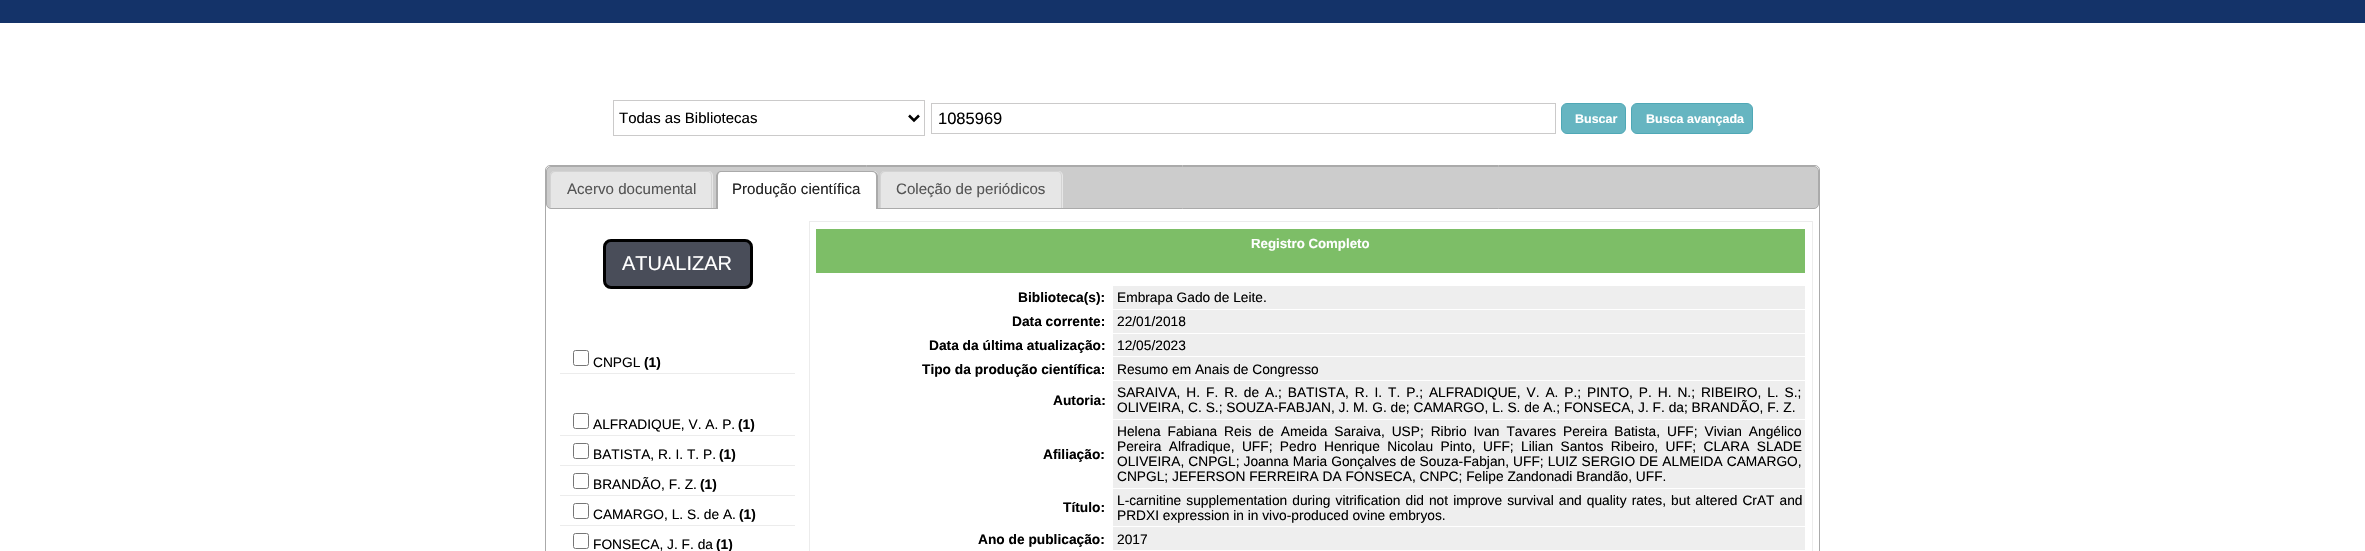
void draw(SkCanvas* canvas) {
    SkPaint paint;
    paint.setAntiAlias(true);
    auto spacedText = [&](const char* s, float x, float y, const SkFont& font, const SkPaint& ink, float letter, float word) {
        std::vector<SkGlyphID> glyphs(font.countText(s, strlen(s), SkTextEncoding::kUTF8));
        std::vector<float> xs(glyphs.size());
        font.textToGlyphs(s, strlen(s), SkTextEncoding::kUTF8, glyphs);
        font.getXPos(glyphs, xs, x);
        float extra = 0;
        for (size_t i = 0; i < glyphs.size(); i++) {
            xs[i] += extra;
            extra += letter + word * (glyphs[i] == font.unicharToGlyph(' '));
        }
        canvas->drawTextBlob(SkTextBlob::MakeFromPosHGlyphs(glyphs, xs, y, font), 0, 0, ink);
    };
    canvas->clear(0xFFFFFFFF);
    paint.setColor(0xFF143369);
    canvas->drawRect(SkRect::MakeXYWH(0, 0, 2365, 23), paint);
    paint.setStyle(SkPaint::kStroke_Style);
    paint.setStrokeWidth(1);
    paint.setColor(0xFFCBCACA);
    canvas->drawRect(SkRect::MakeXYWH(613.5f, 100.5f, 311, 35), paint);
    paint.setStrokeWidth(2.5f);
    paint.setColor(0xFF000000);
    canvas->drawPath(SkPathBuilder().moveTo(909, 115.5f).lineTo(914, 120.5f).lineTo(919, 115.5f).detach(), paint);
    SkFont font1(fontMgr->matchFamilyStyle("Liberation Sans", SkFontStyle::Normal()), 15);
    font1.setSubpixel(true);
    paint.setStyle(SkPaint::kFill_Style);
    canvas->drawString("Todas as Bibliotecas", 619, 123, font1, paint);
    paint.setStyle(SkPaint::kStroke_Style);
    paint.setStrokeWidth(1);
    paint.setColor(0xFFCBCACA);
    canvas->drawRect(SkRect::MakeXYWH(931.5f, 103.5f, 624, 30), paint);
    SkFont font2(fontMgr->matchFamilyStyle("Liberation Sans", SkFontStyle::Normal()), 16.5f);
    font2.setSubpixel(true);
    paint.setStyle(SkPaint::kFill_Style);
    paint.setColor(0xFF000000);
    canvas->drawString("1085969", 938, 124, font2, paint);
    paint.setColor(0xFF66B5C1);
    canvas->drawRoundRect(SkRect::MakeXYWH(1561.5f, 103.5f, 64, 30), 5.5f, 5.5f, paint);
    paint.setStyle(SkPaint::kStroke_Style);
    paint.setColor(0xFF4FA8B6);
    canvas->drawRoundRect(SkRect::MakeXYWH(1561.5f, 103.5f, 64, 30), 5.5f, 5.5f, paint);
    SkFont font3(fontMgr->matchFamilyStyle("Liberation Sans", SkFontStyle::Bold()), 12.5f);
    font3.setSubpixel(true);
    paint.setStyle(SkPaint::kFill_Style);
    paint.setColor(0xFFFFFFFF);
    canvas->drawString("Buscar", 1575, 123, font3, paint);
    paint.setColor(0xFF66B5C1);
    canvas->drawRoundRect(SkRect::MakeXYWH(1631.5f, 103.5f, 121, 30), 5.5f, 5.5f, paint);
    paint.setStyle(SkPaint::kStroke_Style);
    paint.setColor(0xFF4FA8B6);
    canvas->drawRoundRect(SkRect::MakeXYWH(1631.5f, 103.5f, 121, 30), 5.5f, 5.5f, paint);
    paint.setStyle(SkPaint::kFill_Style);
    paint.setColor(0xFFFFFFFF);
    canvas->drawString("Busca avançada", 1646, 123, font3, paint);
    paint.setStyle(SkPaint::kStroke_Style);
    paint.setColor(0xFFAAAAAA);
    canvas->drawRoundRect(SkRect::MakeXYWH(545.5f, 165.5f, 1274, 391), 4.5f, 4.5f, paint);
    paint.setStyle(SkPaint::kFill_Style);
    paint.setColor(0xFFCCCCCC);
    canvas->drawRoundRect(SkRect::MakeXYWH(546.5f, 166.5f, 1272, 42), 4.5f, 4.5f, paint);
    paint.setStyle(SkPaint::kStroke_Style);
    paint.setColor(0xFFAAAAAA);
    canvas->drawRoundRect(SkRect::MakeXYWH(546.5f, 166.5f, 1272, 42), 4.5f, 4.5f, paint);
    paint.setStyle(SkPaint::kFill_Style);
    paint.setColor(0xFFE6E6E6);
    canvas->drawPath(SkPathBuilder().moveTo(555, 171).lineTo(708, 171).cubicTo(711, 171, 713, 173, 713, 176).lineTo(713, 208).lineTo(550, 208).lineTo(550, 176).cubicTo(550, 173, 552, 171, 555, 171).close().detach(), paint);
    paint.setColor(0xFFD3D3D3);
    canvas->drawPath(SkPathBuilder(SkPathFillType::kEvenOdd).moveTo(555, 171).lineTo(708, 171).cubicTo(710, 171, 712, 173, 712, 176).lineTo(712, 208).lineTo(550, 208).lineTo(550, 176).cubicTo(550, 173, 552, 171, 555, 171).close().moveTo(555, 172).lineTo(708, 172).cubicTo(710, 172, 711, 174, 711, 176).lineTo(711, 208).lineTo(551, 208).lineTo(551, 176).cubicTo(551, 174, 553, 172, 555, 172).close().detach(), paint);
    SkFont font4(fontMgr->matchFamilyStyle("Liberation Sans", SkFontStyle::Normal()), 15.1f);
    font4.setSubpixel(true);
    paint.setColor(0xFF555555);
    canvas->drawString("Acervo documental", 567, 194, font4, paint);
    paint.setColor(0xFFFFFFFF);
    canvas->drawPath(SkPathBuilder().moveTo(721, 171).lineTo(873, 171).cubicTo(876, 171, 878, 173, 878, 176).lineTo(878, 209).lineTo(716, 209).lineTo(716, 176).cubicTo(716, 173, 718, 171, 721, 171).close().detach(), paint);
    paint.setColor(0xFFAAAAAA);
    canvas->drawPath(SkPathBuilder(SkPathFillType::kEvenOdd).moveTo(721, 171).lineTo(872, 171).cubicTo(875, 171, 878, 173, 878, 176).lineTo(878, 209).lineTo(716, 209).lineTo(716, 176).cubicTo(716, 173, 718, 171, 721, 171).close().moveTo(721, 172).lineTo(872, 172).cubicTo(875, 172, 876, 174, 876, 176).lineTo(876, 209).lineTo(718, 209).lineTo(718, 176).cubicTo(718, 174, 719, 172, 721, 172).close().detach(), paint);
    paint.setColor(0xFF212121);
    canvas->drawString("Produção científica", 732, 194, font4, paint);
    paint.setColor(0xFFE6E6E6);
    canvas->drawPath(SkPathBuilder().moveTo(885, 171).lineTo(1058, 171).cubicTo(1061, 171, 1063, 173, 1063, 176).lineTo(1063, 208).lineTo(880, 208).lineTo(880, 176).cubicTo(880, 173, 882, 171, 885, 171).close().detach(), paint);
    paint.setColor(0xFFD3D3D3);
    canvas->drawPath(SkPathBuilder(SkPathFillType::kEvenOdd).moveTo(885, 171).lineTo(1058, 171).cubicTo(1060, 171, 1062, 173, 1062, 176).lineTo(1062, 208).lineTo(880, 208).lineTo(880, 176).cubicTo(880, 173, 882, 171, 885, 171).close().moveTo(885, 172).lineTo(1058, 172).cubicTo(1060, 172, 1061, 174, 1061, 176).lineTo(1061, 208).lineTo(881, 208).lineTo(881, 176).cubicTo(881, 174, 883, 172, 885, 172).close().detach(), paint);
    paint.setColor(0xFF555555);
    canvas->drawString("Coleção de periódicos", 896, 194, font4, paint);
    paint.setColor(0xFF494D59);
    canvas->drawRoundRect(SkRect::MakeXYWH(604.5f, 240.5f, 147, 47), 6.5f, 6.5f, paint);
    paint.setStyle(SkPaint::kStroke_Style);
    paint.setStrokeWidth(3);
    paint.setColor(0xFF000000);
    canvas->drawRoundRect(SkRect::MakeXYWH(604.5f, 240.5f, 147, 47), 6.5f, 6.5f, paint);
    SkFont font5(fontMgr->matchFamilyStyle("Liberation Sans", SkFontStyle::Normal()), 20);
    font5.setSubpixel(true);
    paint.setStyle(SkPaint::kFill_Style);
    paint.setColor(0xFFFFFFFF);
    canvas->drawString("ATUALIZAR", 622, 270, font5, paint);
    paint.setColor(0xFFECECEC);
    canvas->drawRect(SkRect::MakeXYWH(560, 373, 235, 1), paint);
    paint.setStyle(SkPaint::kStroke_Style);
    paint.setStrokeWidth(1);
    paint.setColor(0xFF767676);
    canvas->drawRoundRect(SkRect::MakeXYWH(573.5f, 350.5f, 15, 15), 2, 2, paint);
    SkFont font6(fontMgr->matchFamilyStyle("Liberation Sans", SkFontStyle::Normal()), 13.75f);
    font6.setSubpixel(true);
    paint.setStyle(SkPaint::kFill_Style);
    paint.setColor(0xFF000000);
    canvas->drawString("CNPGL", 593, 367, font6, paint);
    SkFont font7(fontMgr->matchFamilyStyle("Liberation Sans", SkFontStyle::Bold()), 13.75f);
    font7.setSubpixel(true);
    canvas->drawString("(1)", 644, 367, font7, paint);
    paint.setColor(0xFFECECEC);
    canvas->drawRect(SkRect::MakeXYWH(560, 435, 235, 1), paint);
    paint.setStyle(SkPaint::kStroke_Style);
    paint.setColor(0xFF767676);
    canvas->drawRoundRect(SkRect::MakeXYWH(573.5f, 413.5f, 15, 15), 2, 2, paint);
    paint.setStyle(SkPaint::kFill_Style);
    paint.setColor(0xFF000000);
    canvas->drawString("ALFRADIQUE, V. A. P.", 593, 429, font6, paint);
    canvas->drawString("(1)", 738, 429, font7, paint);
    paint.setColor(0xFFECECEC);
    canvas->drawRect(SkRect::MakeXYWH(560, 465, 235, 1), paint);
    paint.setStyle(SkPaint::kStroke_Style);
    paint.setColor(0xFF767676);
    canvas->drawRoundRect(SkRect::MakeXYWH(573.5f, 443.5f, 15, 15), 2, 2, paint);
    paint.setStyle(SkPaint::kFill_Style);
    paint.setColor(0xFF000000);
    canvas->drawString("BATISTA, R. I. T. P.", 593, 459, font6, paint);
    canvas->drawString("(1)", 719, 459, font7, paint);
    paint.setColor(0xFFECECEC);
    canvas->drawRect(SkRect::MakeXYWH(560, 495, 235, 1), paint);
    paint.setStyle(SkPaint::kStroke_Style);
    paint.setColor(0xFF767676);
    canvas->drawRoundRect(SkRect::MakeXYWH(573.5f, 473.5f, 15, 15), 2, 2, paint);
    paint.setStyle(SkPaint::kFill_Style);
    paint.setColor(0xFF000000);
    canvas->drawString("BRANDÃO, F. Z.", 593, 489, font6, paint);
    canvas->drawString("(1)", 700, 489, font7, paint);
    paint.setColor(0xFFECECEC);
    canvas->drawRect(SkRect::MakeXYWH(560, 525, 235, 1), paint);
    paint.setStyle(SkPaint::kStroke_Style);
    paint.setColor(0xFF767676);
    canvas->drawRoundRect(SkRect::MakeXYWH(573.5f, 503.5f, 15, 15), 2, 2, paint);
    paint.setStyle(SkPaint::kFill_Style);
    paint.setColor(0xFF000000);
    canvas->drawString("CAMARGO, L. S. de A.", 593, 519, font6, paint);
    canvas->drawString("(1)", 739, 519, font7, paint);
    paint.setStyle(SkPaint::kStroke_Style);
    paint.setColor(0xFF767676);
    canvas->drawRoundRect(SkRect::MakeXYWH(573.5f, 533.5f, 15, 15), 2, 2, paint);
    paint.setStyle(SkPaint::kFill_Style);
    paint.setColor(0xFF000000);
    canvas->drawString("FONSECA, J. F. da", 593, 549, font6, paint);
    canvas->drawString("(1)", 716, 549, font7, paint);
    paint.setStyle(SkPaint::kStroke_Style);
    paint.setColor(0xFFECECEC);
    canvas->drawRect(SkRect::MakeXYWH(809.5f, 221.5f, 1003, 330), paint);
    paint.setStyle(SkPaint::kFill_Style);
    paint.setColor(0xFF7DBE67);
    canvas->drawRect(SkRect::MakeXYWH(816, 229, 989, 44), paint);
    SkFont font8(fontMgr->matchFamilyStyle("Liberation Sans", SkFontStyle::Bold()), 13.25f);
    font8.setSubpixel(true);
    paint.setColor(0xFFFFFFFF);
    canvas->drawString("Registro Completo", 1251, 248, font8, paint);
    paint.setColor(0xFF000000);
    canvas->drawString("Biblioteca(s):", 1018, 302, font7, paint);
    paint.setColor(0xFFEEEEEE);
    canvas->drawRect(SkRect::MakeXYWH(1113, 286, 692, 23), paint);
    paint.setColor(0xFF000000);
    canvas->drawString("Embrapa Gado de Leite.", 1117, 302, font6, paint);
    canvas->drawString("Data corrente:", 1012, 326, font7, paint);
    paint.setColor(0xFFEEEEEE);
    canvas->drawRect(SkRect::MakeXYWH(1113, 310, 692, 23), paint);
    paint.setColor(0xFF000000);
    canvas->drawString("22/01/2018", 1117, 326, font6, paint);
    canvas->drawString("Data da última atualização:", 929, 350, font7, paint);
    paint.setColor(0xFFEEEEEE);
    canvas->drawRect(SkRect::MakeXYWH(1113, 334, 692, 46), paint);
    paint.setColor(0xFFFFFFFF);
    canvas->drawRect(SkRect::MakeXYWH(1113, 356, 692, 1), paint);
    paint.setColor(0xFF000000);
    canvas->drawString("12/05/2023", 1117, 350, font6, paint);
    canvas->drawString("Tipo da produção científica:", 922, 374, font7, paint);
    canvas->drawString("Resumo em Anais de Congresso", 1117, 374, font6, paint);
    canvas->drawString("Autoria:", 1053, 405, font7, paint);
    paint.setColor(0xFFEEEEEE);
    canvas->drawRect(SkRect::MakeXYWH(1113, 381, 692, 38), paint);
    paint.setColor(0xFF000000);
    spacedText("SARAIVA, H. F. R. de A.; BATISTA, R. I. T. P.; ALFRADIQUE, V. A. P.; PINTO, P. H. N.; RIBEIRO, L. S.;", 1117, 397, font6, paint, 0, 2.1f);
    canvas->drawString("OLIVEIRA, C. S.; SOUZA-FABJAN, J. M. G. de; CAMARGO, L. S. de A.; FONSECA, J. F. da; BRANDÃO, F. Z.", 1117, 412, font6, paint);
    canvas->drawString("Afiliação:", 1043, 459, font7, paint);
    paint.setColor(0xFFEEEEEE);
    canvas->drawRect(SkRect::MakeXYWH(1113, 420, 692, 68), paint);
    paint.setColor(0xFF000000);
    spacedText("Helena Fabiana Reis de Ameida Saraiva, USP; Ribrio Ivan Tavares Pereira Batista, UFF; Vivian Angélico", 1117, 436, font6, paint, 0, 3.1f);
    spacedText("Pereira Alfradique, UFF; Pedro Henrique Nicolau Pinto, UFF; Lilian Santos Ribeiro, UFF; CLARA SLADE", 1117, 451, font6, paint, 0, 3.6f);
    spacedText("OLIVEIRA, CNPGL; Joanna Maria Gonçalves de Souza-Fabjan, UFF; LUIZ SERGIO DE ALMEIDA CAMARGO,", 1117, 466, font6, paint, 0, 0.25f);
    canvas->drawString("CNPGL; JEFERSON FERREIRA DA FONSECA, CNPC; Felipe Zandonadi Brandão, UFF.", 1117, 481, font6, paint);
    canvas->drawString("Título:", 1063, 512, font7, paint);
    paint.setColor(0xFFEEEEEE);
    canvas->drawRect(SkRect::MakeXYWH(1113, 489, 692, 61), paint);
    paint.setColor(0xFFFFFFFF);
    canvas->drawRect(SkRect::MakeXYWH(1113, 526, 692, 1), paint);
    paint.setColor(0xFF000000);
    spacedText("L-carnitine supplementation during vitrification did not improve survival and quality rates, but altered CrAT and", 1117, 505, font6, paint, 0, 1.25f);
    canvas->drawString("PRDXI expression in in vivo-produced ovine embryos.", 1117, 520, font6, paint);
    canvas->drawString("Ano de publicação:", 978, 544, font7, paint);
    canvas->drawString("2017", 1117, 544, font6, paint);
}
